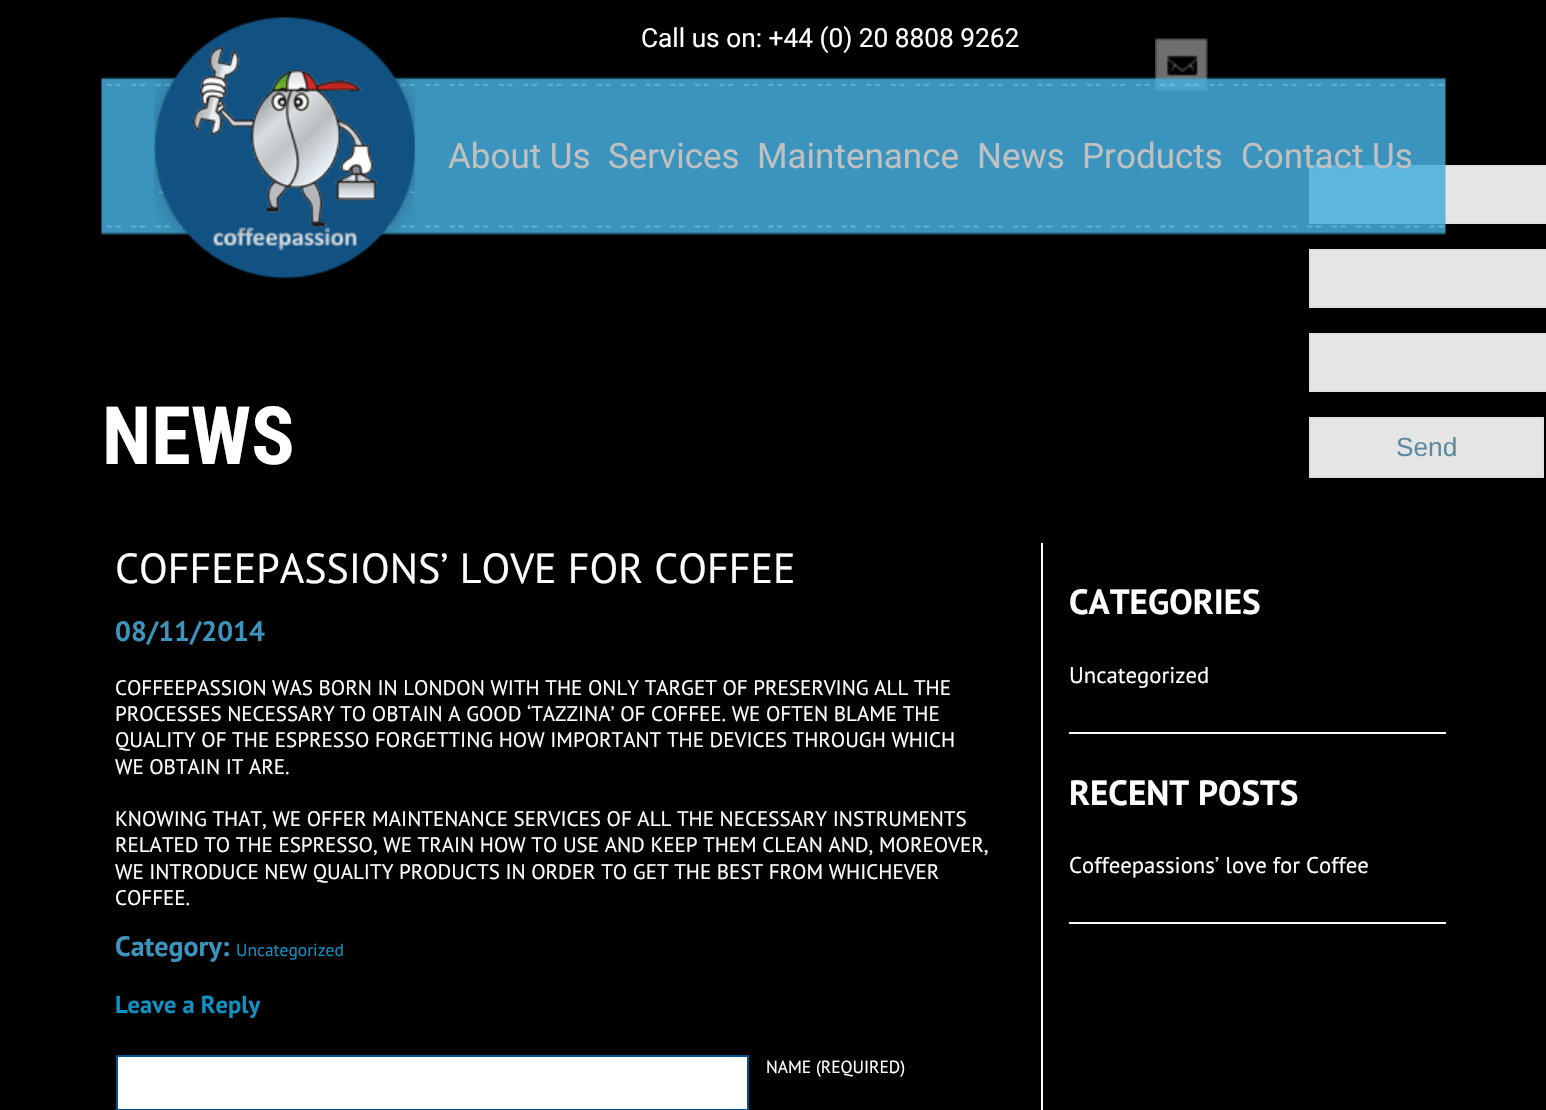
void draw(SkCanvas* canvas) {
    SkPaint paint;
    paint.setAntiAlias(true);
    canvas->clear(0xFF000000);
    canvas->drawImageRect(SkImages::DeferredFromEncodedData(SkData::MakeFromFileName("img2.png")), SkRect::MakeXYWH(1155, 38, 53, 53), SkSamplingOptions());
    paint.setColor(0xFFE5E5E5);
    canvas->drawRect(SkRect::MakeXYWH(1310, 166, 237, 57), paint);
    paint.setStyle(SkPaint::kStroke_Style);
    paint.setStrokeWidth(2);
    paint.setColor(0xFFDFDFDF);
    canvas->drawRect(SkRect::MakeXYWH(1310, 166, 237, 57), paint);
    canvas->drawImageRect(SkImages::DeferredFromEncodedData(SkData::MakeFromFileName("img3.png")), SkRect::MakeXYWH(101, 77, 1345, 158), SkSamplingOptions());
    canvas->drawImageRect(SkImages::DeferredFromEncodedData(SkData::MakeFromFileName("img1.png")), SkRect::MakeXYWH(154, 17, 261, 262), SkSamplingOptions());
    SkFont font1(fontMgr->matchFamilyStyle("Roboto", SkFontStyle::Normal()), 26.25f);
    font1.setSubpixel(true);
    paint.setStyle(SkPaint::kFill_Style);
    paint.setColor(0xFFFFFFFF);
    canvas->drawString("Call us on: +44 (0) 20 8808 9262", 641, 47, font1, paint);
    paint.setColor(0xFFE5E5E5);
    canvas->drawRect(SkRect::MakeXYWH(1310, 250, 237, 57), paint);
    paint.setStyle(SkPaint::kStroke_Style);
    paint.setColor(0xFFDFDFDF);
    canvas->drawRect(SkRect::MakeXYWH(1310, 250, 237, 57), paint);
    paint.setStyle(SkPaint::kFill_Style);
    paint.setColor(0xFFE5E5E5);
    canvas->drawRect(SkRect::MakeXYWH(1310, 334, 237, 57), paint);
    paint.setStyle(SkPaint::kStroke_Style);
    paint.setColor(0xFFDFDFDF);
    canvas->drawRect(SkRect::MakeXYWH(1310, 334, 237, 57), paint);
    paint.setStyle(SkPaint::kFill_Style);
    paint.setColor(0xFFE5E5E5);
    canvas->drawRect(SkRect::MakeXYWH(1310, 418, 233, 59), paint);
    paint.setStyle(SkPaint::kStroke_Style);
    paint.setColor(0xFFDFDFDF);
    canvas->drawRect(SkRect::MakeXYWH(1310, 418, 233, 59), paint);
    SkFont font2(fontMgr->matchFamilyStyle("Liberation Sans", SkFontStyle::Normal()), 26.25f);
    font2.setSubpixel(true);
    paint.setStyle(SkPaint::kFill_Style);
    paint.setColor(0xFF5D8A9F);
    canvas->drawString("Send", 1396, 456, font2, paint);
    SkFont font3(fontMgr->matchFamilyStyle("Roboto", SkFontStyle::Normal()), 35);
    font3.setSubpixel(true);
    paint.setColor(0xFFC0C0C0);
    canvas->drawString("About Us", 448, 168, font3, paint);
    canvas->drawString("Services", 608, 168, font3, paint);
    canvas->drawString("Maintenance", 757, 168, font3, paint);
    canvas->drawString("News", 977, 168, font3, paint);
    canvas->drawString("Products", 1082, 168, font3, paint);
    canvas->drawString("Contact Us", 1241, 168, font3, paint);
    SkFont font4(fontMgr->matchFamilyStyle("Roboto Condensed", SkFontStyle::Bold()), 80.5f);
    font4.setSubpixel(true);
    paint.setColor(0xFFFFFFFF);
    canvas->drawString("NEWS", 102, 464, font4, paint);
    SkFont font5(fontMgr->matchFamilyStyle("PT Sans", SkFontStyle::Normal()), 42);
    font5.setSubpixel(true);
    canvas->drawString("COFFEEPASSIONS’ LOVE FOR COFFEE", 115, 583, font5, paint);
    SkFont font6(fontMgr->matchFamilyStyle("PT Sans", SkFontStyle::Bold()), 28);
    font6.setSubpixel(true);
    paint.setColor(0xFF3A94BD);
    canvas->drawString("08/11/2014", 115, 641, font6, paint);
    SkFont font7(fontMgr->matchFamilyStyle("PT Sans", SkFontStyle::Normal()), 21);
    font7.setSubpixel(true);
    paint.setColor(0xFFFFFFFF);
    canvas->drawString("COFFEEPASSION WAS BORN IN LONDON WITH THE ONLY TARGET OF PRESERVING ALL THE", 115, 695, font7, paint);
    canvas->drawString("PROCESSES NECESSARY TO OBTAIN A GOOD ‘TAZZINA’ OF COFFEE. WE OFTEN BLAME THE", 115, 721, font7, paint);
    canvas->drawString("QUALITY OF THE ESPRESSO FORGETTING HOW IMPORTANT THE DEVICES THROUGH WHICH", 115, 747, font7, paint);
    canvas->drawString("WE OBTAIN IT ARE.", 115, 774, font7, paint);
    canvas->drawString("KNOWING THAT, WE OFFER MAINTENANCE SERVICES OF ALL THE NECESSARY INSTRUMENTS", 115, 826, font7, paint);
    canvas->drawString("RELATED TO THE ESPRESSO, WE TRAIN HOW TO USE AND KEEP THEM CLEAN AND, MOREOVER,", 115, 852, font7, paint);
    canvas->drawString("WE INTRODUCE NEW QUALITY PRODUCTS IN ORDER TO GET THE BEST FROM WHICHEVER", 115, 879, font7, paint);
    canvas->drawString("COFFEE.", 115, 905, font7, paint);
    paint.setColor(0xFF3A94BD);
    canvas->drawString("Category:", 115, 956, font6, paint);
    SkFont font8(fontMgr->matchFamilyStyle("PT Sans", SkFontStyle::Normal()), 17.5f);
    font8.setSubpixel(true);
    paint.setColor(0xFF0E91C5);
    canvas->drawString("Uncategorized", 236, 956, font8, paint);
    SkFont font9(fontMgr->matchFamilyStyle("PT Sans", SkFontStyle::Bold()), 24.5f);
    font9.setSubpixel(true);
    canvas->drawString("Leave a Reply", 115, 1013, font9, paint);
    paint.setColor(0xFFFFFFFF);
    canvas->drawRect(SkRect::MakeXYWH(117, 1056, 631, 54), paint);
    paint.setStyle(SkPaint::kStroke_Style);
    paint.setColor(0xFF00518C);
    canvas->drawRect(SkRect::MakeXYWH(117, 1056, 631, 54), paint);
    paint.setStyle(SkPaint::kFill_Style);
    paint.setColor(0xFFFFFFFF);
    canvas->drawString("NAME (REQUIRED)", 766, 1073, font8, paint);
    canvas->drawRect(SkRect::MakeXYWH(1041, 543, 2, 567), paint);
    SkFont font10(fontMgr->matchFamilyStyle("PT Sans", SkFontStyle::Bold()), 35);
    font10.setSubpixel(true);
    canvas->drawString("CATEGORIES", 1069, 614, font10, paint);
    canvas->drawRect(SkRect::MakeXYWH(1069, 732, 377, 2), paint);
    SkFont font11(fontMgr->matchFamilyStyle("PT Sans", SkFontStyle::Normal()), 22.75f);
    font11.setSubpixel(true);
    canvas->drawString("Uncategorized", 1069, 683, font11, paint);
    canvas->drawString("RECENT POSTS", 1069, 805, font10, paint);
    canvas->drawRect(SkRect::MakeXYWH(1069, 922, 377, 2), paint);
    canvas->drawString("Coffeepassions’ love for Coffee", 1069, 873, font11, paint);
}
